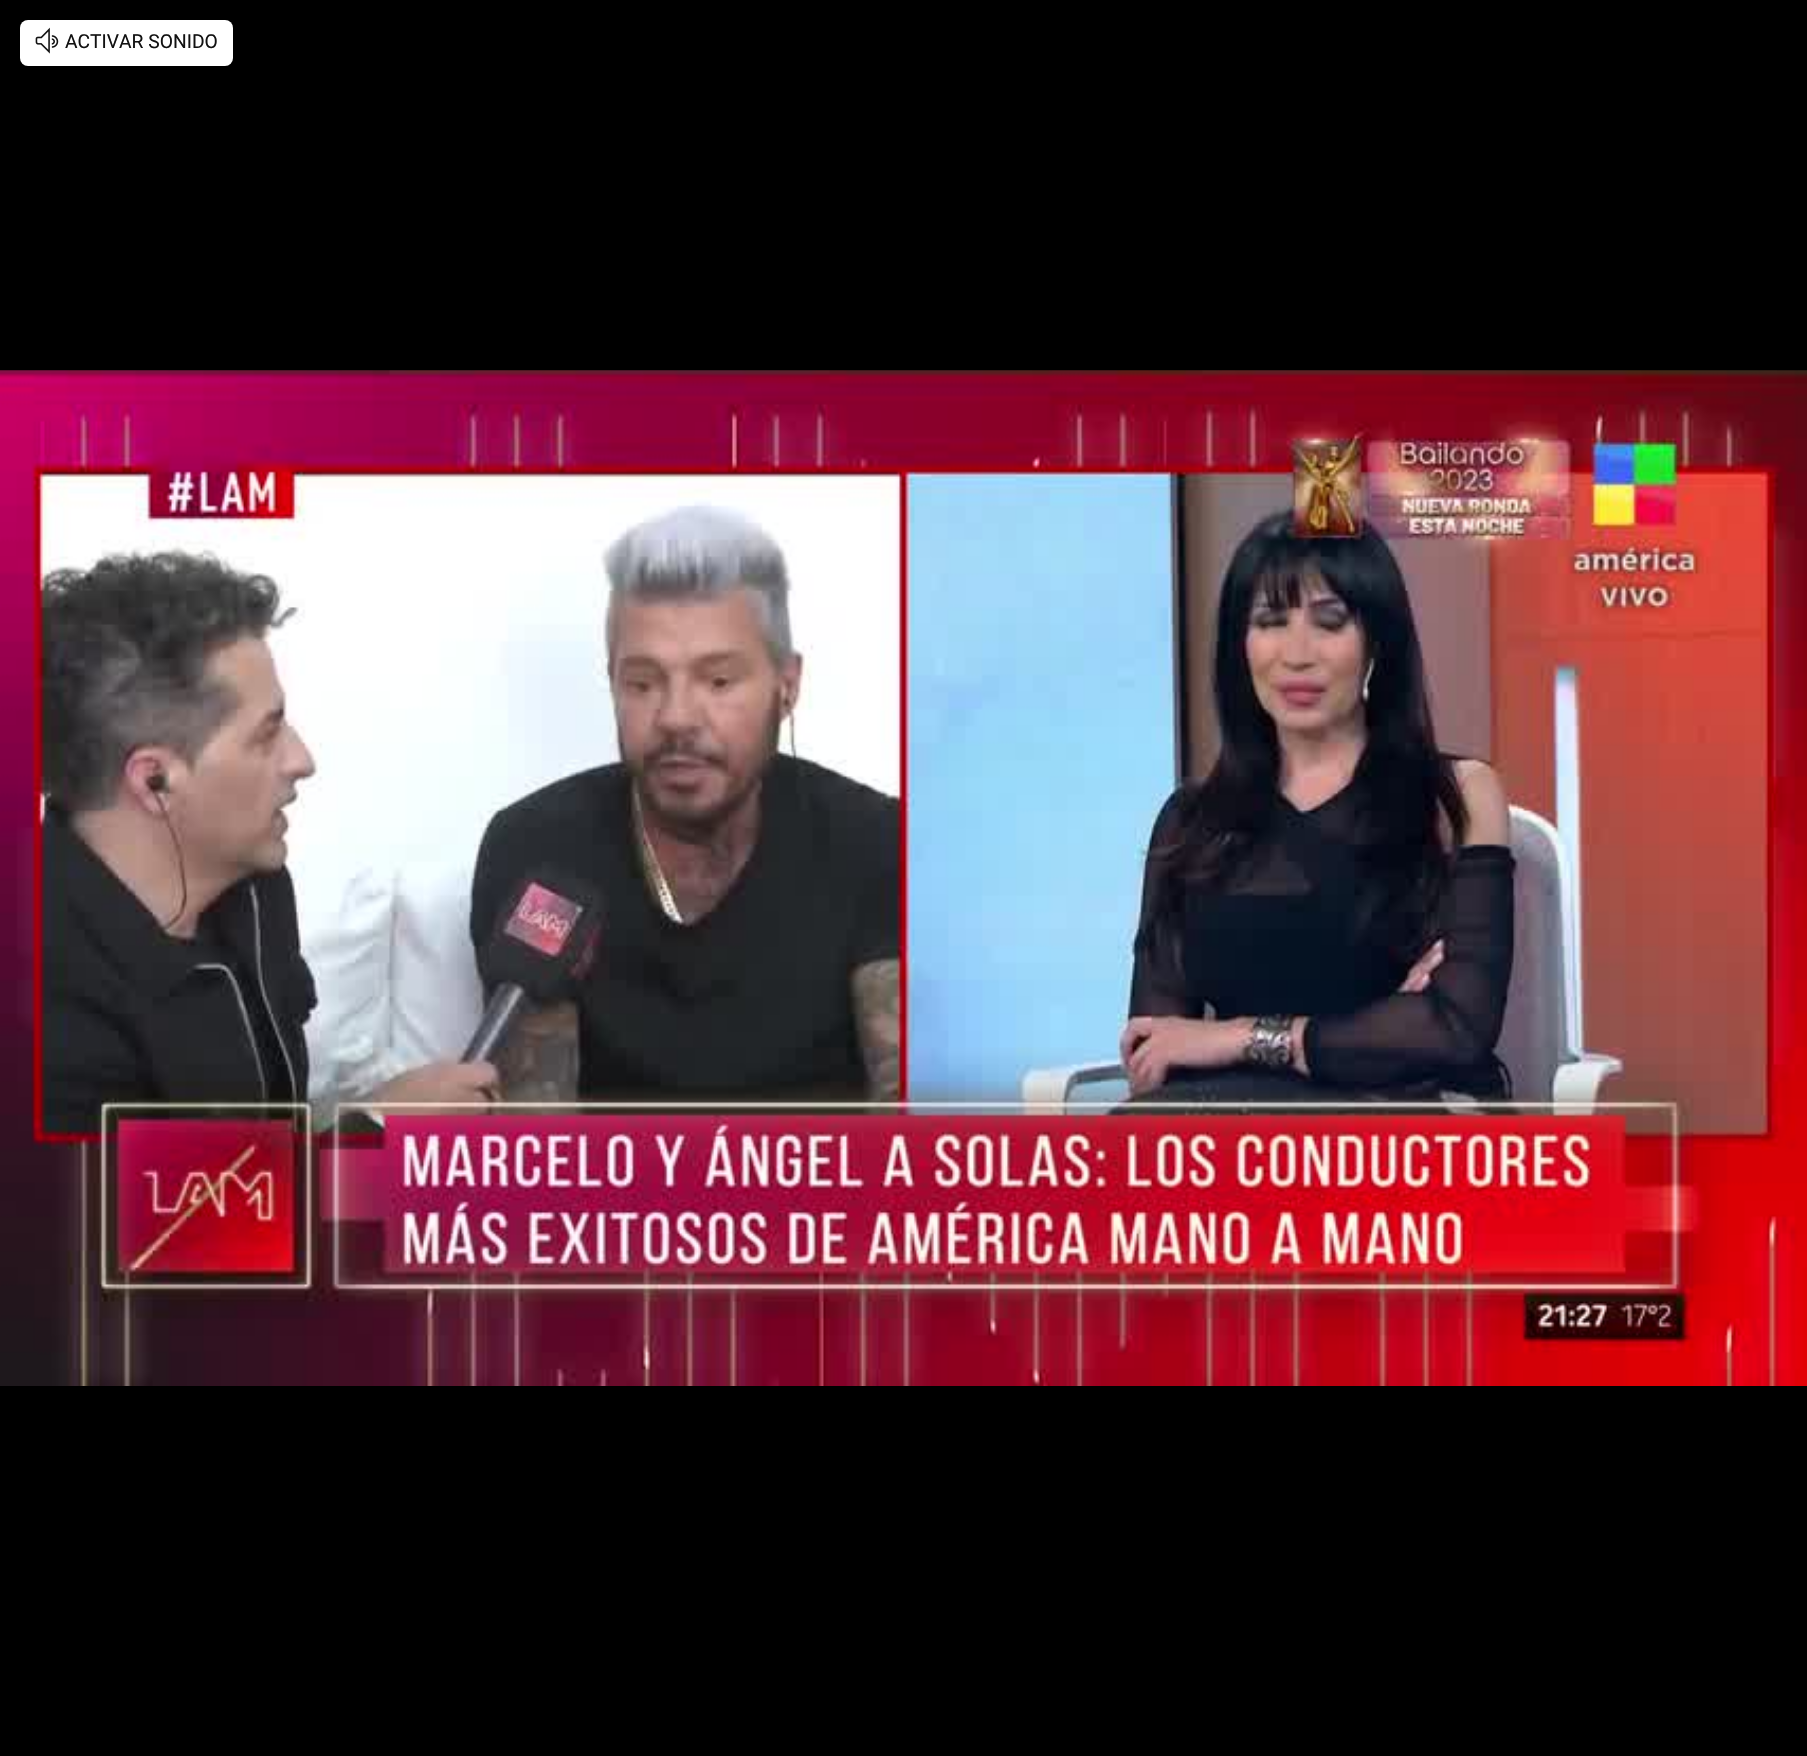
void draw(SkCanvas* canvas) {
    SkPaint paint;
    paint.setAntiAlias(true);
    canvas->clear(0xFF000000);
    paint.setColor(0xFFFFFFFF);
    canvas->drawRoundRect(SkRect::MakeXYWH(20, 20, 213, 46), 8, 8, paint);
    canvas->drawImageRect(SkImages::DeferredFromEncodedData(SkData::MakeFromFileName("img1.png")), SkRect::MakeXYWH(35, 27, 24, 27), SkSamplingOptions());
    SkFont font1(fontMgr->matchFamilyStyle("Roboto", SkFontStyle::Normal()), 19.25f);
    font1.setSubpixel(true);
    paint.setColor(0xFF121212);
    canvas->drawString("ACTIVAR SONIDO", 65, 48, font1, paint);
    canvas->drawImageRect(SkImages::DeferredFromEncodedData(SkData::MakeFromFileName("img2.png")), SkRect::MakeXYWH(0, 370, 1807, 1016), SkSamplingOptions());
    canvas->drawImageRect(SkImages::DeferredFromEncodedData(SkData::MakeFromFileName("img3.png")), SkRect::MakeXYWH(0, 370, 1807, 1), SkSamplingOptions());
}
